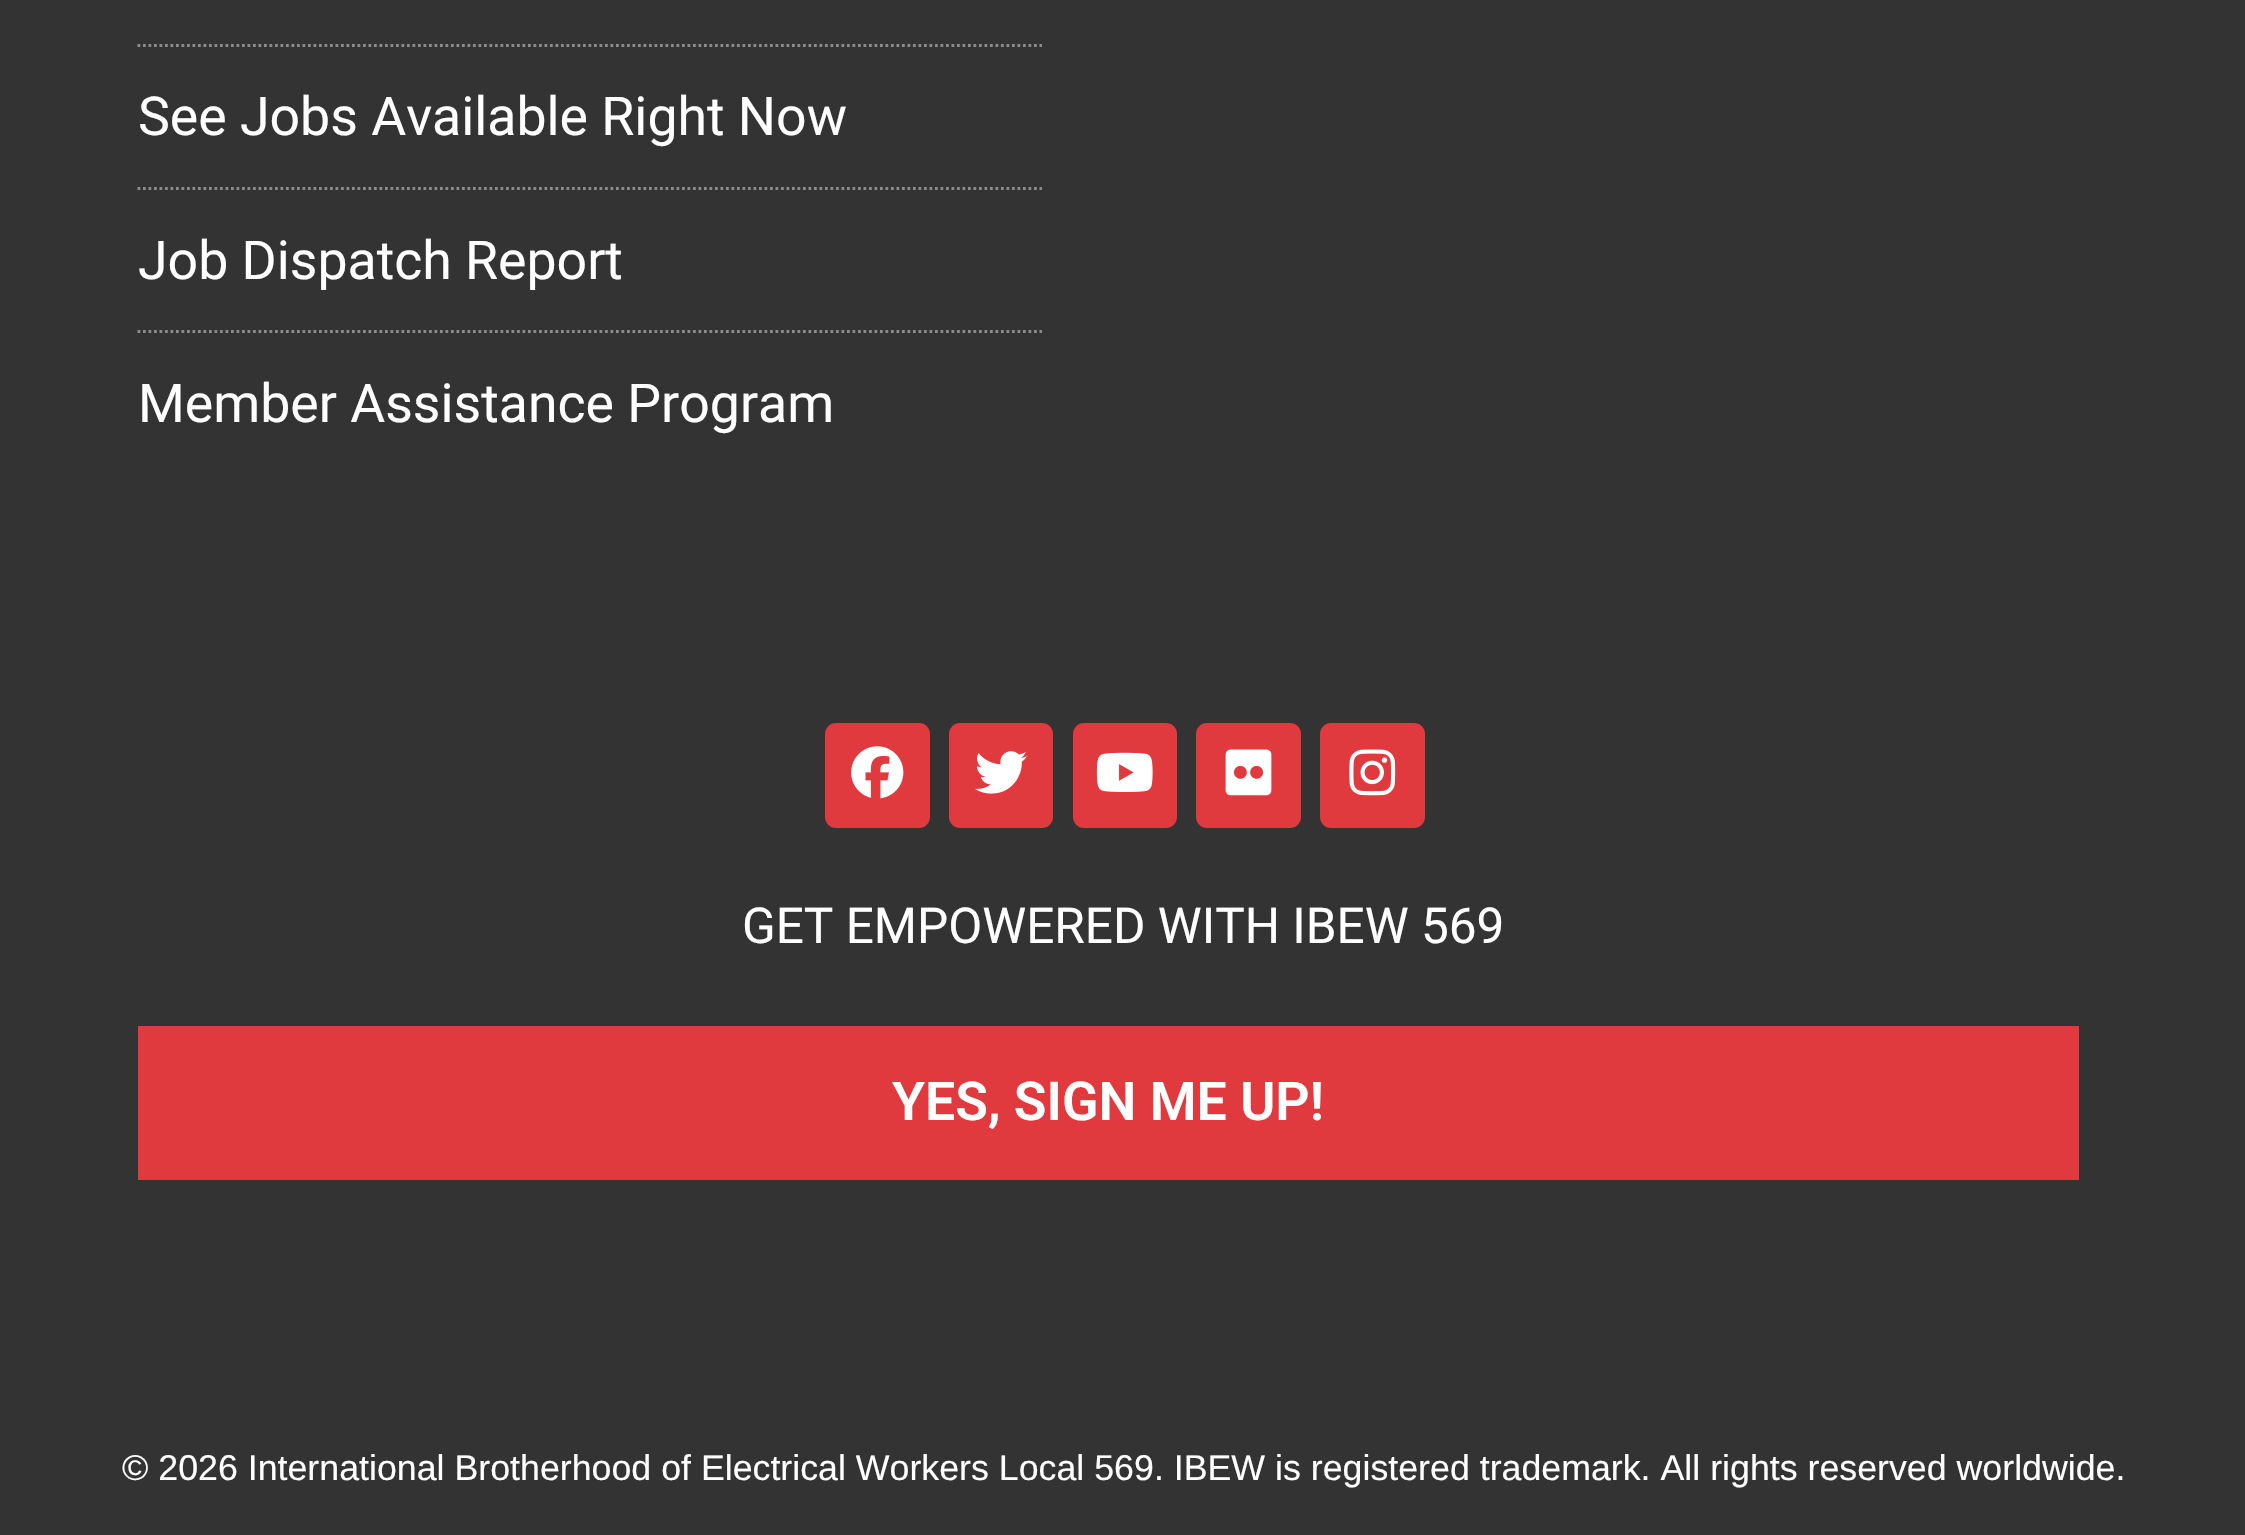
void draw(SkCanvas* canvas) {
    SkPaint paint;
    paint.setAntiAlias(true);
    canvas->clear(0xFF333333);
    paint.setStyle(SkPaint::kStroke_Style);
    paint.setStrokeWidth(2.8f);
    paint.setColor(0xFF8C8C8C);
    paint.setPathEffect(SkDashPathEffect::Make({{2.75f, 2.75f}}, 0));
    canvas->drawPath(SkPathBuilder().moveTo(137.5f, 45.5f).lineTo(1042, 45.5f).detach(), paint);
    paint.setPathEffect(nullptr);
    SkFont font1(fontMgr->matchFamilyStyle("Roboto", SkFontStyle::Normal()), 53.6f);
    font1.setSubpixel(true);
    paint.setStyle(SkPaint::kFill_Style);
    paint.setColor(0xFFFFFFFF);
    canvas->drawString("See Jobs Available Right Now", 138, 135, font1, paint);
    paint.setStyle(SkPaint::kStroke_Style);
    paint.setColor(0xFF8C8C8C);
    paint.setPathEffect(SkDashPathEffect::Make({{2.75f, 2.75f}}, 0));
    canvas->drawPath(SkPathBuilder().moveTo(137.5f, 188.5f).lineTo(1042, 188.5f).detach(), paint);
    paint.setPathEffect(nullptr);
    paint.setStyle(SkPaint::kFill_Style);
    paint.setColor(0xFFFFFFFF);
    canvas->drawString("Job Dispatch Report", 138, 279, font1, paint);
    paint.setStyle(SkPaint::kStroke_Style);
    paint.setColor(0xFF8C8C8C);
    paint.setPathEffect(SkDashPathEffect::Make({{2.75f, 2.75f}}, 0));
    canvas->drawPath(SkPathBuilder().moveTo(137.5f, 331.5f).lineTo(1042, 331.5f).detach(), paint);
    paint.setPathEffect(nullptr);
    paint.setStyle(SkPaint::kFill_Style);
    paint.setColor(0xFFFFFFFF);
    canvas->drawString("Member Assistance Program", 138, 422, font1, paint);
    paint.setColor(0xFFE0393E);
    canvas->drawRoundRect(SkRect::MakeXYWH(825, 723, 105, 105), 11, 11, paint);
    canvas->drawImageRect(SkImages::DeferredFromEncodedData(SkData::MakeFromFileName("img1.png")), SkRect::MakeXYWH(851, 746, 53, 53), SkSamplingOptions());
    canvas->drawRoundRect(SkRect::MakeXYWH(949, 723, 104, 105), 11, 11, paint);
    canvas->drawImageRect(SkImages::DeferredFromEncodedData(SkData::MakeFromFileName("img2.png")), SkRect::MakeXYWH(975, 751, 52, 43), SkSamplingOptions());
    canvas->drawRoundRect(SkRect::MakeXYWH(1073, 723, 104, 105), 11, 11, paint);
    canvas->drawImageRect(SkImages::DeferredFromEncodedData(SkData::MakeFromFileName("img3.png")), SkRect::MakeXYWH(1096, 752, 57, 40), SkSamplingOptions());
    canvas->drawRoundRect(SkRect::MakeXYWH(1196, 723, 105, 105), 11, 11, paint);
    canvas->drawImageRect(SkImages::DeferredFromEncodedData(SkData::MakeFromFileName("img4.png")), SkRect::MakeXYWH(1225, 749, 47, 47), SkSamplingOptions());
    canvas->drawRoundRect(SkRect::MakeXYWH(1320, 723, 105, 105), 11, 11, paint);
    canvas->drawImageRect(SkImages::DeferredFromEncodedData(SkData::MakeFromFileName("img5.png")), SkRect::MakeXYWH(1349, 749, 47, 47), SkSamplingOptions());
    SkFont font2(fontMgr->matchFamilyStyle("Roboto", SkFontStyle::Normal()), 49.5f);
    font2.setSubpixel(true);
    paint.setColor(0xFFFFFFFF);
    canvas->drawString("GET EMPOWERED WITH IBEW 569", 742, 943, font2, paint);
    paint.setColor(0xFFE0393E);
    canvas->drawRect(SkRect::MakeXYWH(138, 1026, 1941, 154), paint);
    SkFont font3(fontMgr->matchFamilyStyle("Roboto", SkFontStyle(600, SkFontStyle::kNormal_Width, SkFontStyle::kUpright_Slant)), 53.6f);
    font3.setSubpixel(true);
    paint.setColor(0xFFFFFFFF);
    canvas->drawString("YES, SIGN ME UP!", 892, 1120, font3, paint);
    SkFont font4(fontMgr->matchFamilyStyle("Liberation Sans", SkFontStyle::Normal()), 35.75f);
    font4.setSubpixel(true);
    canvas->drawString("© 2026 International Brotherhood of Electrical Workers Local 569. IBEW is registered trademark. All rights reserved worldwide.", 122, 1480, font4, paint);
}
